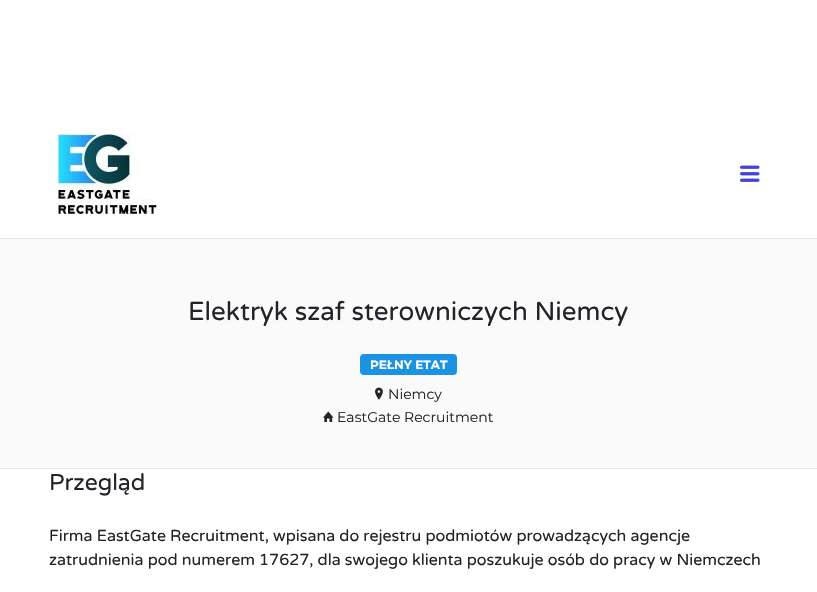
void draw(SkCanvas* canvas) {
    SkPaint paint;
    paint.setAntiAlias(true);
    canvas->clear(0xFFFFFFFF);
    paint.setColor(0xFFE6E6E6);
    canvas->drawRect(SkRect::MakeXYWH(0, 238, 817, 1), paint);
    canvas->drawImageRect(SkImages::DeferredFromEncodedData(SkData::MakeFromFileName("img1.png")), SkRect::MakeXYWH(58, 134, 100, 80), SkSamplingOptions());
    canvas->drawImageRect(SkImages::DeferredFromEncodedData(SkData::MakeFromFileName("img2.png")), SkRect::MakeXYWH(740, 165, 20, 17), SkSamplingOptions());
    paint.setColor(0xFFFAFAFA);
    canvas->drawRect(SkRect::MakeXYWH(0, 239, 817, 229), paint);
    paint.setColor(0xFFE7E7E7);
    canvas->drawRect(SkRect::MakeXYWH(0, 468, 817, 1), paint);
    SkFont font1(fontMgr->matchFamilyStyle("Varela Round", SkFontStyle::Normal()), 26);
    font1.setSubpixel(true);
    paint.setColor(0xFF23232A);
    canvas->drawString("Elektryk szaf sterowniczych Niemcy", 188, 320, font1, paint);
    paint.setColor(0xFF1C93E2);
    canvas->drawRoundRect(SkRect::MakeXYWH(360, 354, 97, 21), 4, 4, paint);
    SkFont font2(fontMgr->matchFamilyStyle("Montserrat", SkFontStyle::Bold()), 12);
    font2.setSubpixel(true);
    paint.setColor(0xFFFFFFFF);
    canvas->drawString("PEŁNY ETAT", 370, 369, font2, paint);
    canvas->drawImageRect(SkImages::DeferredFromEncodedData(SkData::MakeFromFileName("img3.png")), SkRect::MakeXYWH(375, 387, 8, 13), SkSamplingOptions());
    SkFont font3(fontMgr->matchFamilyStyle("Montserrat", SkFontStyle::Normal()), 14);
    font3.setSubpixel(true);
    paint.setColor(0xFF23232A);
    canvas->drawString("Niemcy", 388, 399, font3, paint);
    canvas->drawImageRect(SkImages::DeferredFromEncodedData(SkData::MakeFromFileName("img4.png")), SkRect::MakeXYWH(323, 411, 11, 11), SkSamplingOptions());
    canvas->drawString("EastGate Recruitment", 337, 422, font3, paint);
    SkFont font4(fontMgr->matchFamilyStyle("Varela Round", SkFontStyle::Normal()), 23);
    font4.setSubpixel(true);
    canvas->drawString("Przegląd", 49, 490, font4, paint);
    SkFont font5(fontMgr->matchFamilyStyle("Varela Round", SkFontStyle::Normal()), 16);
    font5.setSubpixel(true);
    canvas->drawString("Firma EastGate Recruitment, wpisana do rejestru podmiotów prowadzących agencje", 49, 541, font5, paint);
    canvas->drawString("zatrudnienia pod numerem 17627, dla swojego klienta poszukuje osób do pracy w Niemczech", 49, 565, font5, paint);
}
